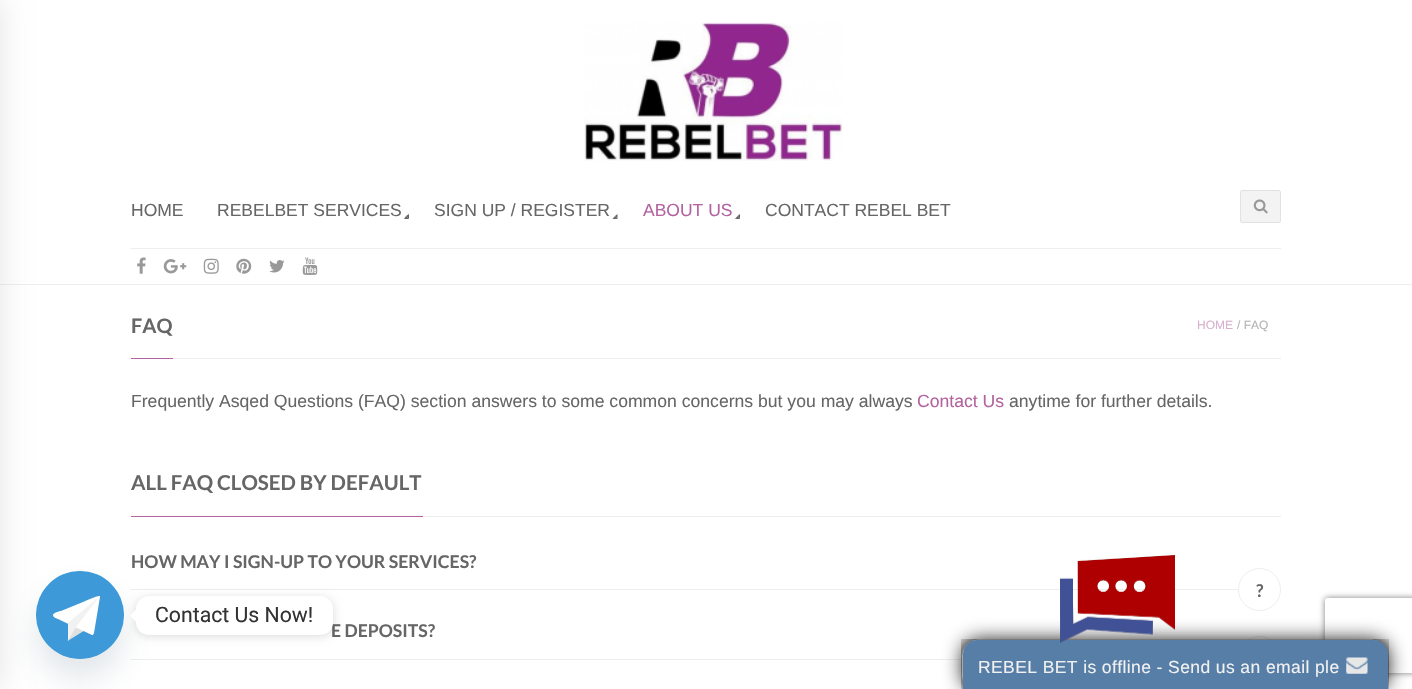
void draw(SkCanvas* canvas) {
    SkPaint paint;
    paint.setAntiAlias(true);
    auto spacedText = [&](const char* s, float x, float y, const SkFont& font, const SkPaint& ink, float letter, float word) {
        std::vector<SkGlyphID> glyphs(font.countText(s, strlen(s), SkTextEncoding::kUTF8));
        std::vector<float> xs(glyphs.size());
        font.textToGlyphs(s, strlen(s), SkTextEncoding::kUTF8, glyphs);
        font.getXPos(glyphs, xs, x);
        float extra = 0;
        for (size_t i = 0; i < glyphs.size(); i++) {
            xs[i] += extra;
            extra += letter + word * (glyphs[i] == font.unicharToGlyph(' '));
        }
        canvas->drawTextBlob(SkTextBlob::MakeFromPosHGlyphs(glyphs, xs, y, font), 0, 0, ink);
    };
    canvas->clear(0xFFFFFFFF);
    paint.setColor(0xFFEEEEEE);
    canvas->drawRect(SkRect::MakeXYWH(0, 284, 1412, 1), paint);
    paint.setColor(0x1A000000);
    paint.setMaskFilter(SkMaskFilter::MakeBlur(kNormal_SkBlurStyle, 15.5f));
    canvas->drawRect(SkRect::MakeXYWH(-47, 0, 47, 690), paint);
    paint.setMaskFilter(nullptr);
    canvas->drawImageRect(SkImages::DeferredFromEncodedData(SkData::MakeFromFileName("img1.png")), SkRect::MakeXYWH(584, 22, 259, 139), SkSamplingOptions());
    SkFont font1(fontMgr->matchFamilyStyle("Liberation Sans", SkFontStyle::Normal()), 17.5f);
    font1.setSubpixel(true);
    paint.setColor(0xFF666666);
    canvas->drawString("HOME", 131, 216, font1, paint);
    canvas->drawString("REBELBET SERVICES", 217, 216, font1, paint);
    canvas->drawPath(SkPathBuilder().moveTo(409, 214).lineTo(409, 219).lineTo(406, 216).close().detach(), paint);
    canvas->drawPath(SkPathBuilder().moveTo(409, 219).lineTo(404, 219).lineTo(406, 216).close().detach(), paint);
    canvas->drawString("SIGN UP / REGISTER", 434, 216, font1, paint);
    canvas->drawPath(SkPathBuilder().moveTo(617.5f, 214).lineTo(617.5f, 219).lineTo(615, 216).close().detach(), paint);
    canvas->drawPath(SkPathBuilder().moveTo(617.5f, 219).lineTo(612.5f, 219).lineTo(615, 216).close().detach(), paint);
    paint.setColor(0xFFB363A0);
    canvas->drawString("ABOUT US", 643, 216, font1, paint);
    paint.setColor(0xFF666666);
    canvas->drawPath(SkPathBuilder().moveTo(740, 214).lineTo(740, 219).lineTo(737.5f, 216).close().detach(), paint);
    canvas->drawPath(SkPathBuilder().moveTo(740, 219).lineTo(735, 219).lineTo(737.5f, 216).close().detach(), paint);
    canvas->drawString("CONTACT REBEL BET", 765, 216, font1, paint);
    paint.setColor(0xFFF3F3F3);
    canvas->drawRoundRect(SkRect::MakeXYWH(1240, 190, 41, 33), 2.5f, 2.5f, paint);
    paint.setStyle(SkPaint::kStroke_Style);
    paint.setStrokeWidth(1);
    paint.setColor(0x12000000);
    canvas->drawRoundRect(SkRect::MakeXYWH(1240.5f, 190.5f, 40, 32), 2, 2, paint);
    canvas->drawImageRect(SkImages::DeferredFromEncodedData(SkData::MakeFromFileName("img2.png")), SkRect::MakeXYWH(1253, 199, 15, 15), SkSamplingOptions());
    paint.setStyle(SkPaint::kFill_Style);
    paint.setColor(0xFFEEEEEE);
    canvas->drawRect(SkRect::MakeXYWH(131, 248, 1150, 1), paint);
    canvas->drawImageRect(SkImages::DeferredFromEncodedData(SkData::MakeFromFileName("img3.png")), SkRect::MakeXYWH(137, 257, 9, 17), SkSamplingOptions());
    canvas->drawImageRect(SkImages::DeferredFromEncodedData(SkData::MakeFromFileName("img4.png")), SkRect::MakeXYWH(163, 259, 24, 15), SkSamplingOptions());
    canvas->drawImageRect(SkImages::DeferredFromEncodedData(SkData::MakeFromFileName("img5.png")), SkRect::MakeXYWH(203, 258, 16, 16), SkSamplingOptions());
    canvas->drawImageRect(SkImages::DeferredFromEncodedData(SkData::MakeFromFileName("img6.png")), SkRect::MakeXYWH(236, 258, 16, 16), SkSamplingOptions());
    canvas->drawImageRect(SkImages::DeferredFromEncodedData(SkData::MakeFromFileName("img7.png")), SkRect::MakeXYWH(269, 260, 16, 13), SkSamplingOptions());
    canvas->drawImageRect(SkImages::DeferredFromEncodedData(SkData::MakeFromFileName("img8.png")), SkRect::MakeXYWH(302, 257, 16, 18), SkSamplingOptions());
    canvas->drawRect(SkRect::MakeXYWH(173, 358, 1108, 1), paint);
    paint.setColor(0xFFB363A0);
    canvas->drawRect(SkRect::MakeXYWH(131, 358, 42, 1), paint);
    SkFont font2(fontMgr->matchFamilyStyle("Lato", SkFontStyle::Bold()), 20);
    font2.setSubpixel(true);
    paint.setColor(0xFF666666);
    canvas->drawString("FAQ", 131, 333, font2, paint);
    SkFont font3(fontMgr->matchFamilyStyle("Liberation Sans", SkFontStyle::Normal()), 12);
    font3.setSubpixel(true);
    paint.setColor(0xFFD9B1D0);
    canvas->drawString("HOME", 1197, 329, font3, paint);
    paint.setColor(0xFFB3B3B3);
    canvas->drawString("/ FAQ", 1237, 329, font3, paint);
    SkFont font4(fontMgr->matchFamilyStyle("Liberation Sans", SkFontStyle::Normal()), 17.6f);
    font4.setSubpixel(true);
    paint.setColor(0xFF666666);
    canvas->drawString("Frequently Asqed Questions (FAQ) section answers to some common concerns but you may always", 131, 407, font4, paint);
    paint.setColor(0xFFB363A0);
    canvas->drawString("Contact Us", 917, 407, font4, paint);
    paint.setColor(0xFF666666);
    canvas->drawString("anytime for further details.", 1009, 407, font4, paint);
    paint.setColor(0xFFEEEEEE);
    canvas->drawRect(SkRect::MakeXYWH(423, 516, 858, 1), paint);
    paint.setColor(0xFFB363A0);
    canvas->drawRect(SkRect::MakeXYWH(131, 516, 292, 1), paint);
    SkFont font5(fontMgr->matchFamilyStyle("Lato", SkFontStyle::Bold()), 20.5f);
    font5.setSubpixel(true);
    paint.setColor(0xFF666666);
    canvas->drawString("ALL FAQ CLOSED BY DEFAULT", 131, 490, font5, paint);
    paint.setColor(0xFFEEEEEE);
    canvas->drawRect(SkRect::MakeXYWH(131, 589, 1150, 1), paint);
    SkFont font6(fontMgr->matchFamilyStyle("Lato", SkFontStyle::Bold()), 17.6f);
    font6.setSubpixel(true);
    paint.setColor(0xFF666666);
    canvas->drawString("HOW MAY I SIGN-UP TO YOUR SERVICES?", 131, 568, font6, paint);
    paint.setColor(0xFFFFFFFF);
    canvas->drawCircle(1259.5f, 589.5f, 21, paint);
    paint.setStyle(SkPaint::kStroke_Style);
    paint.setColor(0xFFEEEEEE);
    canvas->drawCircle(1259.5f, 589.5f, 21, paint);
    paint.setStyle(SkPaint::kFill_Style);
    paint.setColor(0xFF666666);
    canvas->drawString("?", 1256, 597, font6, paint);
    paint.setColor(0xFFEEEEEE);
    canvas->drawRect(SkRect::MakeXYWH(131, 659, 832, 1), paint);
    paint.setColor(0xFF666666);
    canvas->drawString("E DEPOSITS?", 331, 637, font6, paint);
    paint.setStyle(SkPaint::kStroke_Style);
    paint.setColor(0xFFEEEEEE);
    canvas->drawRoundRect(SkRect::MakeXYWH(1238.5f, 636.5f, 42, 43), 21, 21, paint);
    canvas->save();
    canvas->clipPath(SkPathBuilder(SkPathFillType::kEvenOdd).moveTo(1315, 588).lineTo(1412, 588).lineTo(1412, 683).lineTo(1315, 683).close().moveTo(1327.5f, 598).lineTo(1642.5f, 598).cubicTo(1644, 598, 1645, 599, 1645, 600.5f).lineTo(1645, 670.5f).cubicTo(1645, 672, 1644, 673, 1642.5f, 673).lineTo(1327.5f, 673).cubicTo(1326, 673, 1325, 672, 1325, 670.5f).lineTo(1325, 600.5f).cubicTo(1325, 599, 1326, 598, 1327.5f, 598).close().detach(), true);
    paint.setStyle(SkPaint::kFill_Style);
    paint.setColor(0xFF808080);
    paint.setMaskFilter(SkMaskFilter::MakeBlur(kNormal_SkBlurStyle, 3));
    canvas->drawRoundRect(SkRect::MakeXYWH(1325, 598, 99, 75), 2.5f, 2.5f, paint);
    paint.setMaskFilter(nullptr);
    canvas->restore();
    paint.setColor(0x2949687E);
    paint.setMaskFilter(SkMaskFilter::MakeBlur(kNormal_SkBlurStyle, 15));
    canvas->drawRoundRect(SkRect::MakeXYWH(36, 591, 88, 88), 44, 44, paint);
    paint.setMaskFilter(nullptr);
    paint.setColor(0xFF3E99D8);
    canvas->drawCircle(80, 615, 44, paint);
    canvas->drawCircle(80, 615, 43.5f, paint);
    paint.setColor(0xFFE0E0E0);
    canvas->drawPath(SkPathBuilder().moveTo(75.5f, 626.5f).lineTo(67.5f, 641).lineTo(84.5f, 630.5f).close().detach(), paint);
    paint.setColor(0xFFFFFFFF);
    canvas->drawPath(SkPathBuilder().moveTo(100, 596).cubicTo(98, 595, 85, 601, 83, 602).lineTo(61, 611).cubicTo(60, 611, 53, 613, 53, 615).cubicTo(53, 618, 59, 619, 60, 620).lineTo(92, 635).lineTo(93, 635).lineTo(94, 633).lineTo(100, 597).close().detach(), paint);
    paint.setColor(0xFFF2F2F2);
    canvas->drawPath(SkPathBuilder().moveTo(99, 597).lineTo(68, 623).lineTo(68, 641).lineTo(76, 627).close().detach(), paint);
    paint.setColor(0x26000000);
    paint.setMaskFilter(SkMaskFilter::MakeBlur(kNormal_SkBlurStyle, 5));
    canvas->drawRoundRect(SkRect::MakeXYWH(136, 598, 197, 38), 13, 13, paint);
    paint.setMaskFilter(nullptr);
    paint.setColor(0xFFFFFFFF);
    canvas->drawRoundRect(SkRect::MakeXYWH(136, 596, 197, 39), 13, 13, paint);
    canvas->drawPath(SkPathBuilder().moveTo(136, 609.5f).lineTo(136, 622).lineTo(130, 615.5f).close().detach(), paint);
    SkFont font7(fontMgr->matchFamilyStyle("Roboto", SkFontStyle::Normal()), 21.25f);
    font7.setSubpixel(true);
    paint.setColor(0xFF333333);
    canvas->drawString("Contact Us Now!", 155, 622, font7, paint);
    paint.setColor(0xFF111111);
    paint.setMaskFilter(SkMaskFilter::MakeBlur(kNormal_SkBlurStyle, 9.5f));
    canvas->drawRoundRect(SkRect::MakeXYWH(963, 640, 425, 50), 16, 16, paint);
    paint.setMaskFilter(nullptr);
    canvas->drawImageRect(SkImages::DeferredFromEncodedData(SkData::MakeFromFileName("img10.png")), SkRect::MakeXYWH(961, 639, 428, 50), SkSamplingOptions());
    paint.setColor(0xFF567EA6);
    canvas->drawPath(SkPathBuilder().moveTo(977, 640).lineTo(1374, 640).cubicTo(1381.5f, 640, 1388, 646.5f, 1388, 654).lineTo(1388, 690).lineTo(963, 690).lineTo(963, 654).cubicTo(963, 646.5f, 969.5f, 640, 977, 640).close().detach(), paint);
    canvas->drawImageRect(SkImages::DeferredFromEncodedData(SkData::MakeFromFileName("img9.png")), SkRect::MakeXYWH(1060, 555, 115, 88), SkSamplingOptions());
    paint.setColor(0xFFF1F1F1);
    spacedText("REBEL BET is offline - Send us an email ple", 978, 673, font1, paint, 0.4f, 0);
    canvas->drawImageRect(SkImages::DeferredFromEncodedData(SkData::MakeFromFileName("img11.png")), SkRect::MakeXYWH(1346, 657, 22, 17), SkSamplingOptions());
}
